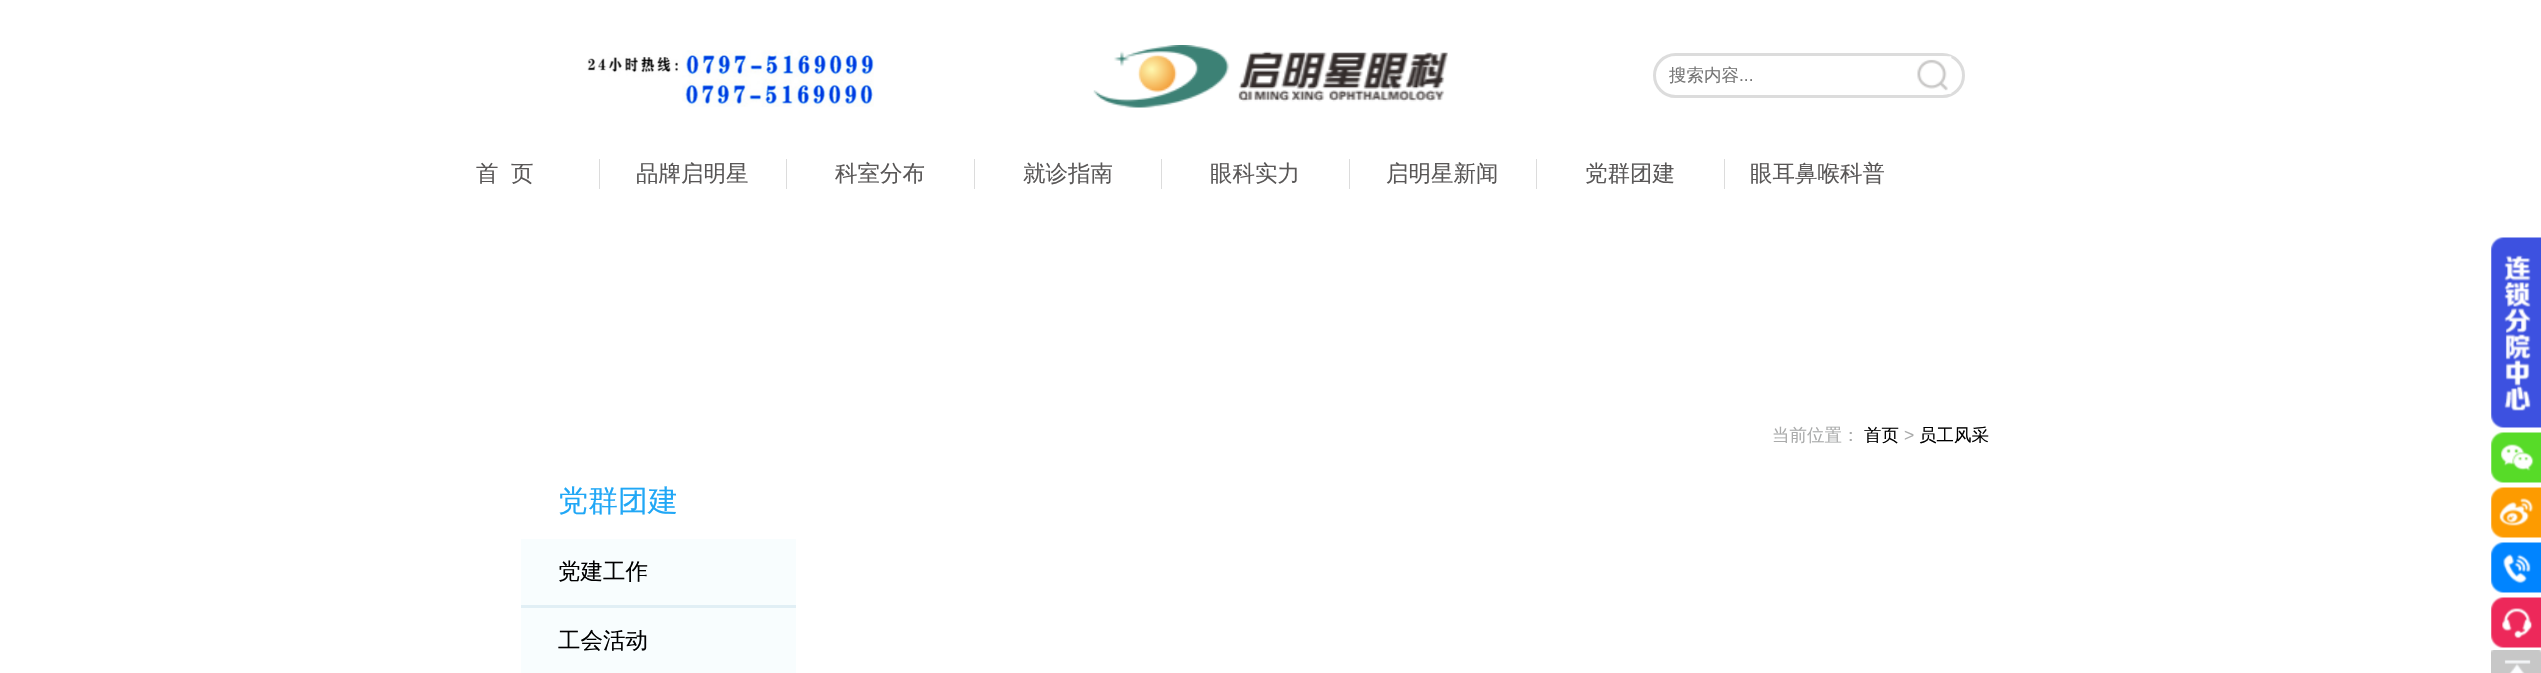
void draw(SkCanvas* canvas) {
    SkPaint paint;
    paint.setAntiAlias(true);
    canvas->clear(0xFFFFFFFF);
    canvas->drawImageRect(SkImages::DeferredFromEncodedData(SkData::MakeFromFileName("img1.png")), SkRect::MakeXYWH(587, 50, 287, 57), SkSamplingOptions());
    canvas->drawImageRect(SkImages::DeferredFromEncodedData(SkData::MakeFromFileName("img2.png")), SkRect::MakeXYWH(1093, 45, 355, 63), SkSamplingOptions());
    paint.setStyle(SkPaint::kStroke_Style);
    paint.setStrokeWidth(3);
    paint.setColor(0xFFDCDCDC);
    canvas->drawRoundRect(SkRect::MakeXYWH(1654.5f, 54.5f, 309, 42), 21, 21, paint);
    SkFont font1(fontMgr->matchFamilyStyle("WenQuanYi Zen Hei", SkFontStyle(500, SkFontStyle::kNormal_Width, SkFontStyle::kUpright_Slant)), 17.5f);
    font1.setSubpixel(true);
    paint.setStyle(SkPaint::kFill_Style);
    paint.setColor(0xFF757575);
    canvas->drawString("搜索内容", 1669, 81, font1, paint);
    SkFont font2(fontMgr->matchFamilyStyle("Liberation Sans", SkFontStyle::Normal()), 17.5f);
    font2.setSubpixel(true);
    canvas->drawString("...", 1739, 81, font2, paint);
    canvas->drawImageRect(SkImages::DeferredFromEncodedData(SkData::MakeFromFileName("img3.png")), SkRect::MakeXYWH(1917, 56, 35, 38), SkSamplingOptions());
    SkFont font3(fontMgr->matchFamilyStyle("WenQuanYi Zen Hei", SkFontStyle(500, SkFontStyle::kNormal_Width, SkFontStyle::kUpright_Slant)), 22.5f);
    font3.setSubpixel(true);
    paint.setColor(0xFF595757);
    canvas->drawString("首", 476, 181, font3, paint);
    canvas->drawString("页", 511, 181, font3, paint);
    paint.setColor(0xFFDCDCDC);
    canvas->drawRect(SkRect::MakeXYWH(599, 159, 1, 30), paint);
    paint.setColor(0xFF595757);
    canvas->drawString("品牌启明星", 636, 181, font3, paint);
    paint.setColor(0xFFDCDCDC);
    canvas->drawRect(SkRect::MakeXYWH(786, 159, 1, 30), paint);
    paint.setColor(0xFF595757);
    canvas->drawString("科室分布", 835, 181, font3, paint);
    paint.setColor(0xFFDCDCDC);
    canvas->drawRect(SkRect::MakeXYWH(974, 159, 1, 30), paint);
    paint.setColor(0xFF595757);
    canvas->drawString("就诊指南", 1023, 181, font3, paint);
    paint.setColor(0xFFDCDCDC);
    canvas->drawRect(SkRect::MakeXYWH(1161, 159, 1, 30), paint);
    paint.setColor(0xFF595757);
    canvas->drawString("眼科实力", 1210, 181, font3, paint);
    paint.setColor(0xFFDCDCDC);
    canvas->drawRect(SkRect::MakeXYWH(1349, 159, 1, 30), paint);
    paint.setColor(0xFF595757);
    canvas->drawString("启明星新闻", 1386, 181, font3, paint);
    paint.setColor(0xFFDCDCDC);
    canvas->drawRect(SkRect::MakeXYWH(1536, 159, 1, 30), paint);
    paint.setColor(0xFF595757);
    canvas->drawString("党群团建", 1585, 181, font3, paint);
    paint.setColor(0xFFDCDCDC);
    canvas->drawRect(SkRect::MakeXYWH(1724, 159, 1, 30), paint);
    paint.setColor(0xFF595757);
    canvas->drawString("眼耳鼻喉科普", 1750, 181, font3, paint);
    paint.setColor(0xFFAAABAB);
    canvas->drawString("当前位置：", 1772, 441, font1, paint);
    paint.setColor(0xFF000000);
    canvas->drawString("首页", 1864, 441, font1, paint);
    paint.setColor(0xFFAAABAB);
    canvas->drawString(">", 1904, 441, font2, paint);
    paint.setColor(0xFF000000);
    canvas->drawString("员工风采", 1919, 441, font1, paint);
    SkFont font4(fontMgr->matchFamilyStyle("WenQuanYi Zen Hei", SkFontStyle(500, SkFontStyle::kNormal_Width, SkFontStyle::kUpright_Slant)), 30);
    font4.setSubpixel(true);
    paint.setColor(0xFF20A7F6);
    canvas->drawString("党群团建", 558, 511, font4, paint);
    paint.setColor(0xFFF8FDFE);
    canvas->drawRect(SkRect::MakeXYWH(521, 539, 275, 66), paint);
    paint.setColor(0xFFE1EFF5);
    canvas->drawRect(SkRect::MakeXYWH(521, 605, 275, 3), paint);
    paint.setColor(0xFF000000);
    canvas->drawString("党建工作", 558, 579, font3, paint);
    paint.setColor(0xFFF8FDFE);
    canvas->drawRect(SkRect::MakeXYWH(521, 608, 275, 65), paint);
    paint.setColor(0xFF000000);
    canvas->drawString("工会活动", 558, 648, font3, paint);
    canvas->drawImageRect(SkImages::DeferredFromEncodedData(SkData::MakeFromFileName("img4.png")), SkRect::MakeXYWH(2491, 237, 50, 191), SkSamplingOptions());
    canvas->drawImageRect(SkImages::DeferredFromEncodedData(SkData::MakeFromFileName("img5.png")), SkRect::MakeXYWH(2491, 432, 50, 51), SkSamplingOptions());
    canvas->drawImageRect(SkImages::DeferredFromEncodedData(SkData::MakeFromFileName("img6.png")), SkRect::MakeXYWH(2491, 487, 50, 51), SkSamplingOptions());
    canvas->drawImageRect(SkImages::DeferredFromEncodedData(SkData::MakeFromFileName("img7.png")), SkRect::MakeXYWH(2491, 542, 50, 51), SkSamplingOptions());
    canvas->drawImageRect(SkImages::DeferredFromEncodedData(SkData::MakeFromFileName("img8.png")), SkRect::MakeXYWH(2491, 597, 50, 51), SkSamplingOptions());
    canvas->drawImageRect(SkImages::DeferredFromEncodedData(SkData::MakeFromFileName("img9.png")), SkRect::MakeXYWH(2491, 650, 50, 23), SkSamplingOptions());
}
